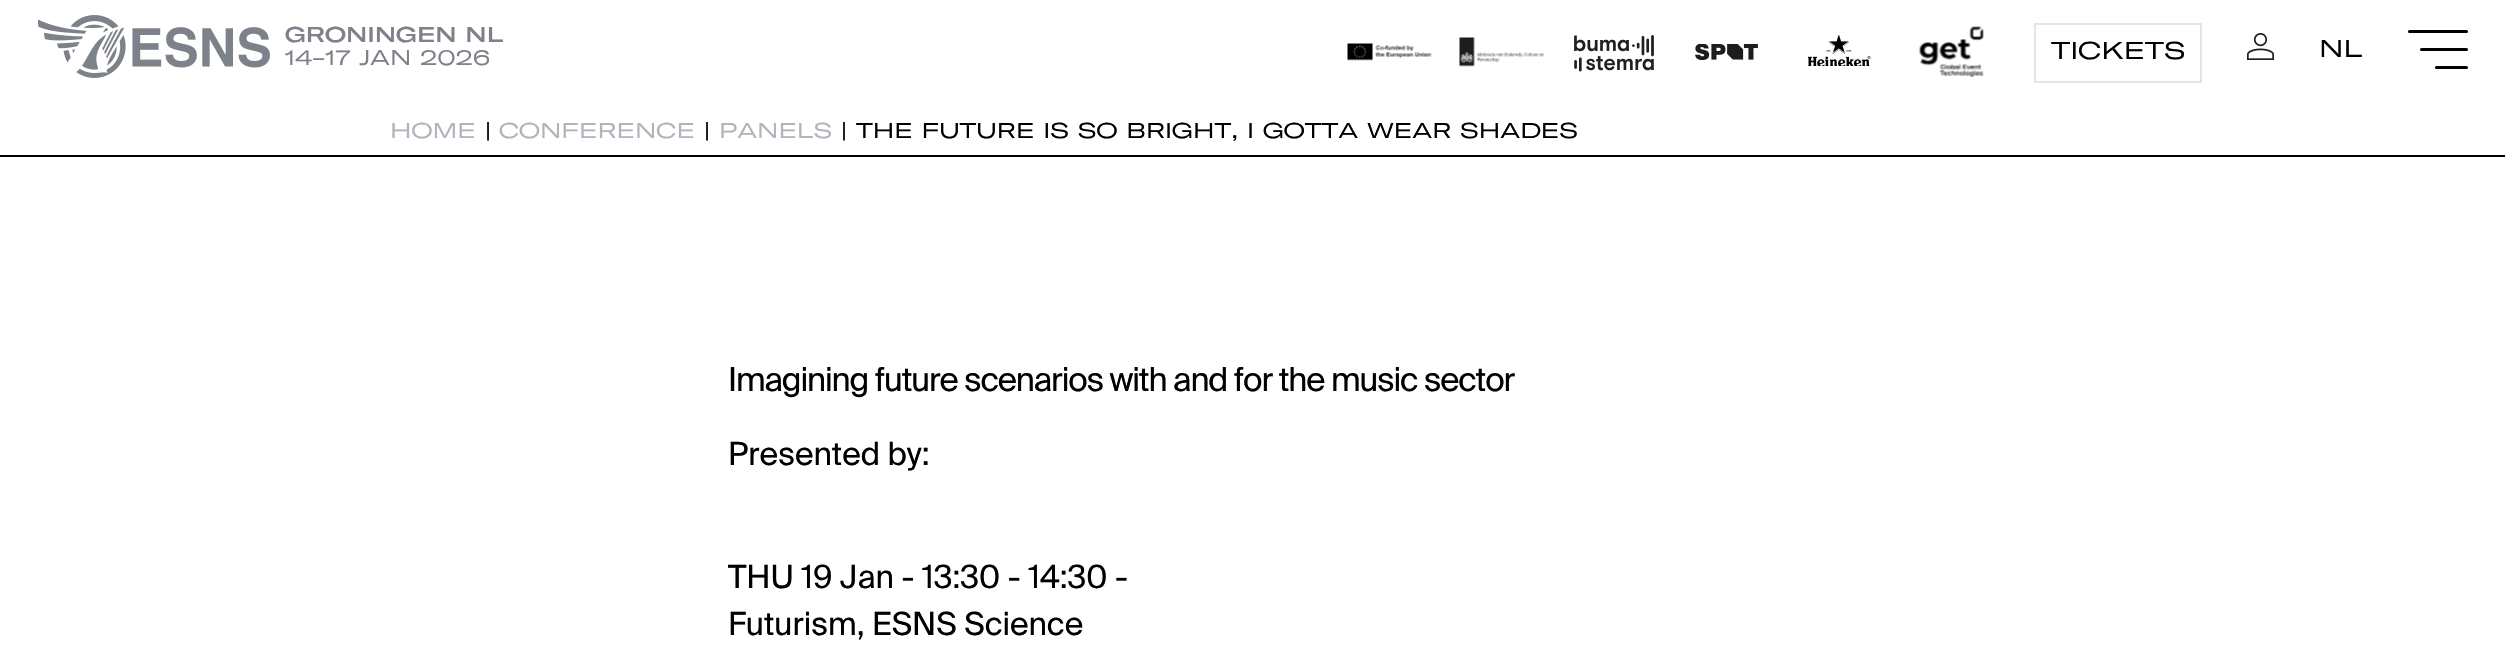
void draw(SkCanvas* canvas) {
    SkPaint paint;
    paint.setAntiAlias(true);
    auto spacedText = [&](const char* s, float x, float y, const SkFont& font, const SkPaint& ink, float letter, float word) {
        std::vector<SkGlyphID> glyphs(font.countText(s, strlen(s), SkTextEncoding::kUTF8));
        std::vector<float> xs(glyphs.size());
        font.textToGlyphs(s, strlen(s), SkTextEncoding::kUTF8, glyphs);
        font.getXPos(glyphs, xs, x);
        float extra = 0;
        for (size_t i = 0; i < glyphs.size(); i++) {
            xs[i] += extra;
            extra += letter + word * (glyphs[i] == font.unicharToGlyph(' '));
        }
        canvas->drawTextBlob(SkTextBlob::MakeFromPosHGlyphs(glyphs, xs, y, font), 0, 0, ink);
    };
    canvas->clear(0xFFFFFFFF);
    canvas->drawImageRect(SkImages::DeferredFromEncodedData(SkData::MakeFromFileName("img1.png")), SkRect::MakeXYWH(38, 15, 232, 63), SkSamplingOptions());
    SkFont font1(fontMgr->matchFamilyStyle("GT America", SkFontStyle(500, SkFontStyle::kNormal_Width, SkFontStyle::kUpright_Slant)), 21);
    font1.setSubpixel(true);
    paint.setColor(0xFF7D8189);
    canvas->drawString("GRONINGEN NL", 285, 42, font1, paint);
    SkFont font2(fontMgr->matchFamilyStyle("GT America", SkFontStyle::Normal()), 21);
    font2.setSubpixel(true);
    canvas->drawString("14-17 JAN 2026", 285, 65, font2, paint);
    canvas->drawImageRect(SkImages::DeferredFromEncodedData(SkData::MakeFromFileName("img2.png")), SkRect::MakeXYWH(1347, 43, 85, 18), SkSamplingOptions());
    canvas->drawImageRect(SkImages::DeferredFromEncodedData(SkData::MakeFromFileName("img3.png")), SkRect::MakeXYWH(1459, 37, 85, 30), SkSamplingOptions());
    canvas->drawImageRect(SkImages::DeferredFromEncodedData(SkData::MakeFromFileName("img4.png")), SkRect::MakeXYWH(1574, 35, 80, 37), SkSamplingOptions());
    canvas->drawImageRect(SkImages::DeferredFromEncodedData(SkData::MakeFromFileName("img5.png")), SkRect::MakeXYWH(1695, 44, 63, 17), SkSamplingOptions());
    canvas->drawImageRect(SkImages::DeferredFromEncodedData(SkData::MakeFromFileName("img6.png")), SkRect::MakeXYWH(1808, 35, 63, 31), SkSamplingOptions());
    canvas->drawImageRect(SkImages::DeferredFromEncodedData(SkData::MakeFromFileName("img7.png")), SkRect::MakeXYWH(1919, 26, 65, 51), SkSamplingOptions());
    paint.setStyle(SkPaint::kStroke_Style);
    paint.setStrokeWidth(2);
    paint.setColor(0xFFE5E5E6);
    canvas->drawRect(SkRect::MakeXYWH(2035, 24, 166, 58), paint);
    SkFont font3(fontMgr->matchFamilyStyle("GT America", SkFontStyle::Normal()), 24);
    font3.setSubpixel(true);
    paint.setStyle(SkPaint::kFill_Style);
    paint.setColor(0xFF000000);
    canvas->drawString("TICKETS", 2051, 59, font3, paint);
    canvas->drawImageRect(SkImages::DeferredFromEncodedData(SkData::MakeFromFileName("img8.png")), SkRect::MakeXYWH(2247, 33, 27, 27), SkSamplingOptions());
    canvas->drawString("NL", 2319, 57, font3, paint);
    canvas->drawRoundRect(SkRect::MakeXYWH(2408, 30, 60, 3), 1.5f, 1.5f, paint);
    canvas->drawRoundRect(SkRect::MakeXYWH(2420, 48, 48, 3), 1.5f, 1.5f, paint);
    canvas->drawRoundRect(SkRect::MakeXYWH(2435, 66, 33, 3), 1.5f, 1.5f, paint);
    canvas->drawRect(SkRect::MakeXYWH(0, 155, 2505, 2), paint);
    paint.setColor(0xFFB1B4BC);
    canvas->drawString("HOME", 390, 138, font2, paint);
    paint.setColor(0xFF000000);
    canvas->drawString("|", 485, 138, font2, paint);
    paint.setColor(0xFFB1B4BC);
    canvas->drawString("CONFERENCE", 499, 138, font2, paint);
    paint.setColor(0xFF000000);
    canvas->drawString("|", 704, 138, font2, paint);
    paint.setColor(0xFFB1B4BC);
    canvas->drawString("PANELS", 719, 138, font2, paint);
    paint.setColor(0xFF000000);
    canvas->drawString("| THE FUTURE IS SO BRIGHT, I GOTTA WEAR SHADES", 841, 138, font2, paint);
    SkFont font4(fontMgr->matchFamilyStyle("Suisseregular", SkFontStyle::Normal()), 33);
    font4.setSubpixel(true);
    spacedText("Imagining future scenarios with and for the music sector", 728, 391, font4, paint, -1.12f, 0);
    SkFont font5(fontMgr->matchFamilyStyle("Suisseregular", SkFontStyle::Normal()), 31.9f);
    font5.setSubpixel(true);
    canvas->drawString("Presented by:", 728, 465, font5, paint);
    canvas->drawString("THU 19 Jan - 13:30 - 14:30 -", 728, 588, font5, paint);
    canvas->drawString("Futurism, ESNS Science", 728, 635, font5, paint);
}
